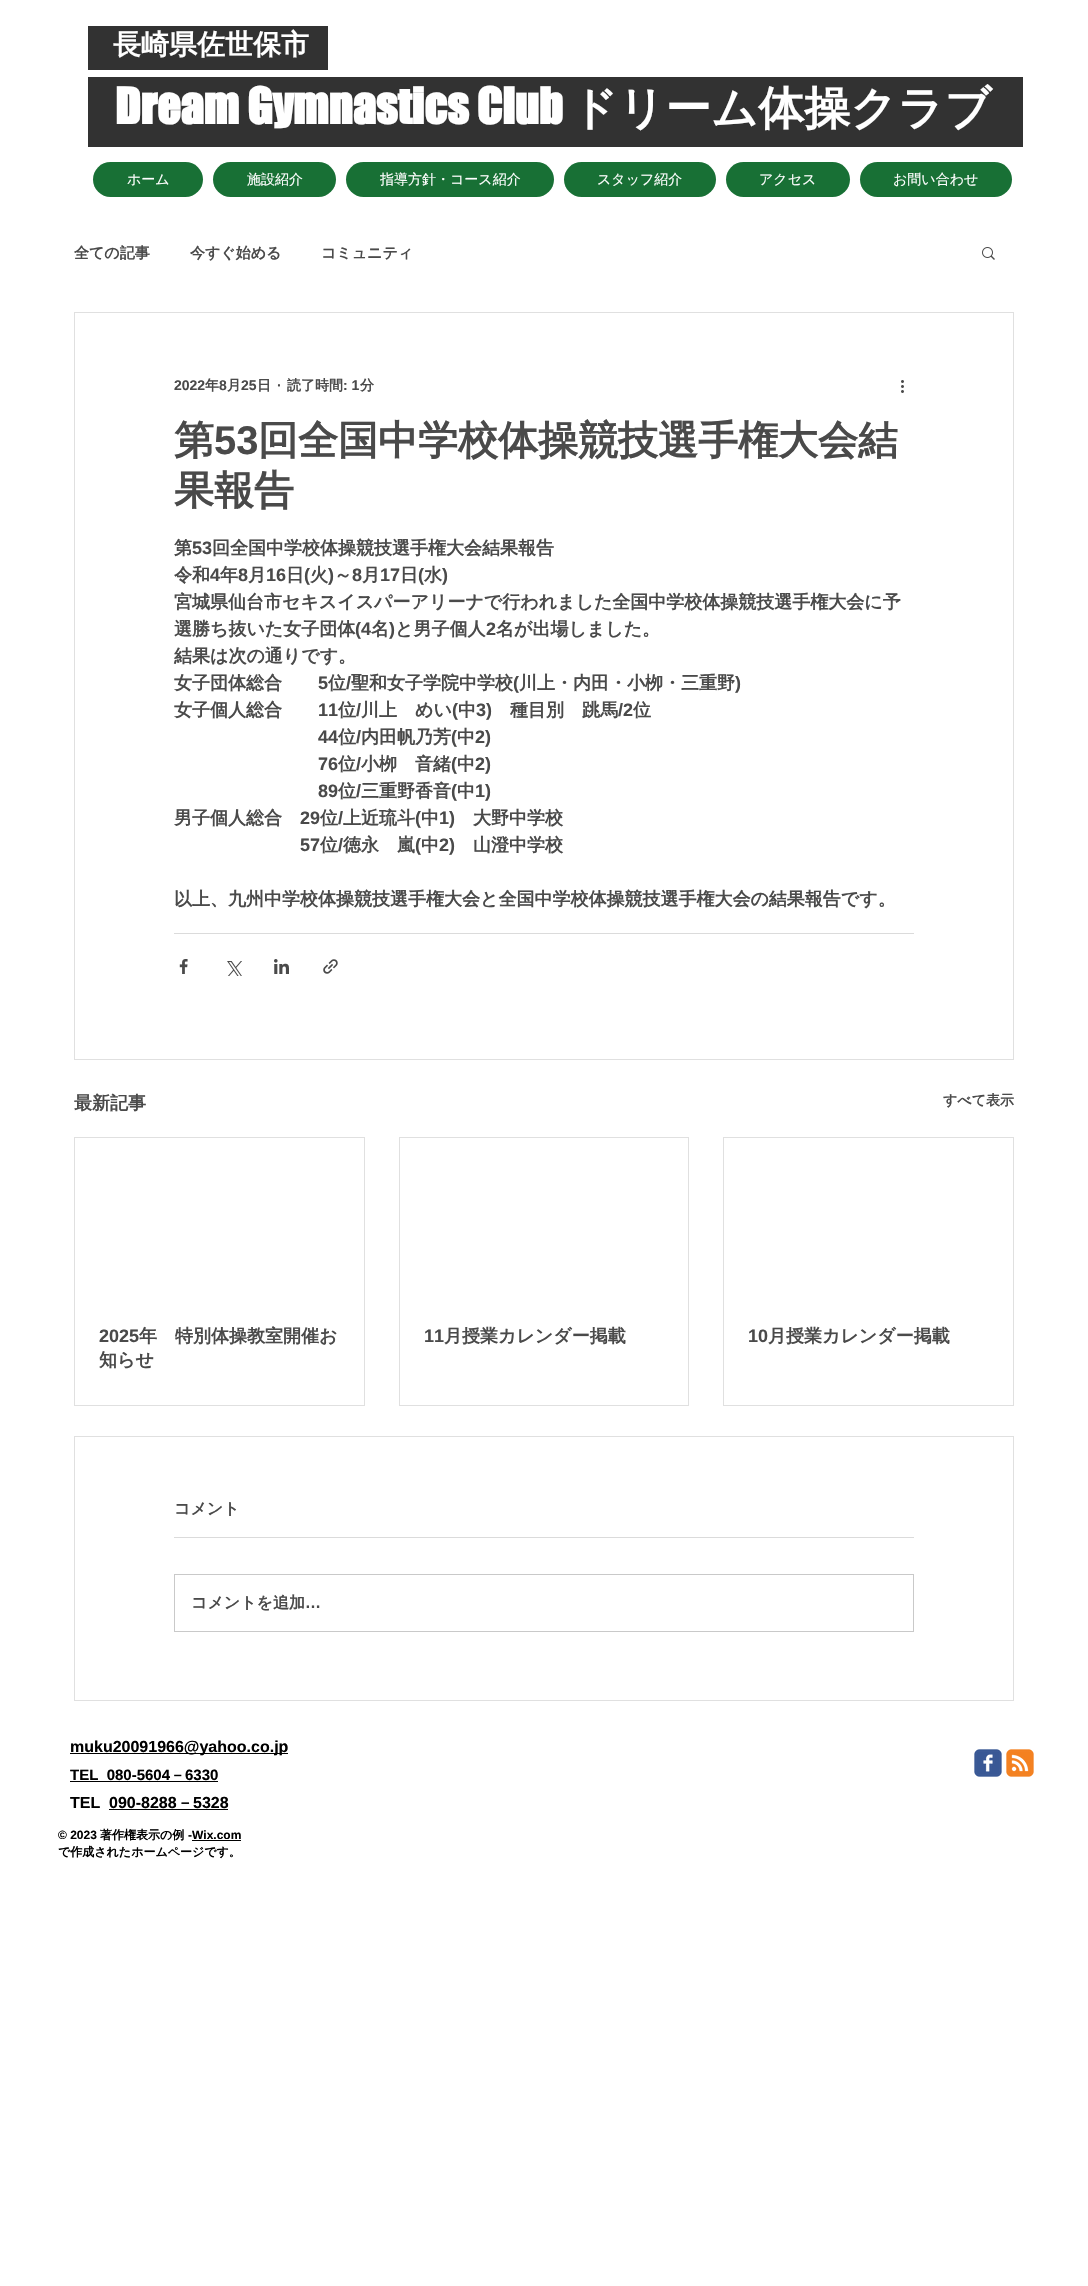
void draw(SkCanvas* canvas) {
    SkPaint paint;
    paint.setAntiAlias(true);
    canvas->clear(0xFFFFFFFF);
    paint.setColor(0xFF323232);
    canvas->drawRect(SkRect::MakeXYWH(88, 26, 240, 44), paint);
    SkFont font1(fontMgr->matchFamilyStyle("WenQuanYi Zen Hei", SkFontStyle::Bold()), 28);
    font1.setSubpixel(true);
    paint.setColor(0xFFFFFFFF);
    canvas->drawString("長崎県佐世保市", 113, 54, font1, paint);
    paint.setColor(0xFF323232);
    canvas->drawRect(SkRect::MakeXYWH(88, 77, 935, 70), paint);
    SkFont font2(fontMgr->matchFamilyStyle("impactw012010", SkFontStyle::Bold()), 46);
    font2.setSubpixel(true);
    paint.setColor(0xFFFFFFFF);
    canvas->drawString("Dream Gymnastics Club", 115, 124, font2, paint);
    SkFont font3(fontMgr->matchFamilyStyle("WenQuanYi Zen Hei", SkFontStyle::Bold()), 46);
    font3.setSubpixel(true);
    canvas->drawString("ドリーム体操クラブ", 571, 124, font3, paint);
    paint.setColor(0xFF187035);
    canvas->drawRoundRect(SkRect::MakeXYWH(93, 162, 110, 35), 17.5f, 17.5f, paint);
    SkFont font4(fontMgr->matchFamilyStyle("WenQuanYi Zen Hei", SkFontStyle(500, SkFontStyle::kNormal_Width, SkFontStyle::kUpright_Slant)), 14);
    font4.setSubpixel(true);
    paint.setColor(0xFFFFFFFF);
    canvas->drawString("ホーム", 127, 184, font4, paint);
    paint.setColor(0xFF187035);
    canvas->drawRoundRect(SkRect::MakeXYWH(213, 162, 123, 35), 17.5f, 17.5f, paint);
    paint.setColor(0xFFFFFFFF);
    canvas->drawString("施設紹介", 247, 184, font4, paint);
    paint.setColor(0xFF187035);
    canvas->drawRoundRect(SkRect::MakeXYWH(346, 162, 208, 35), 17.5f, 17.5f, paint);
    paint.setColor(0xFFFFFFFF);
    canvas->drawString("指導方針・コース紹介", 380, 184, font4, paint);
    paint.setColor(0xFF187035);
    canvas->drawRoundRect(SkRect::MakeXYWH(564, 162, 152, 35), 17.5f, 17.5f, paint);
    paint.setColor(0xFFFFFFFF);
    canvas->drawString("スタッフ紹介", 597, 184, font4, paint);
    paint.setColor(0xFF187035);
    canvas->drawRoundRect(SkRect::MakeXYWH(726, 162, 124, 35), 17.5f, 17.5f, paint);
    paint.setColor(0xFFFFFFFF);
    canvas->drawString("アクセス", 759, 184, font4, paint);
    paint.setColor(0xFF187035);
    canvas->drawRoundRect(SkRect::MakeXYWH(860, 162, 152, 35), 17.5f, 17.5f, paint);
    paint.setColor(0xFFFFFFFF);
    canvas->drawString("お問い合わせ", 893, 184, font4, paint);
    SkFont font5(fontMgr->matchFamilyStyle("WenQuanYi Zen Hei", SkFontStyle::Bold()), 15);
    font5.setSubpixel(true);
    paint.setColor(0xFF4A4A4A);
    canvas->drawString("全ての記事", 74, 258, font5, paint);
    canvas->drawString("今すぐ始める", 190, 258, font5, paint);
    canvas->drawString("コミュニティ", 321, 258, font5, paint);
    canvas->drawImageRect(SkImages::DeferredFromEncodedData(SkData::MakeFromFileName("img1.png")), SkRect::MakeXYWH(982, 247, 13, 13), SkSamplingOptions());
    paint.setStyle(SkPaint::kStroke_Style);
    paint.setStrokeWidth(1);
    paint.setColor(0xFFE0E0E0);
    canvas->drawRect(SkRect::MakeXYWH(74.5f, 312.5f, 939, 747), paint);
    SkFont font6(fontMgr->matchFamilyStyle("Liberation Sans", SkFontStyle::Bold()), 14);
    font6.setSubpixel(true);
    paint.setStyle(SkPaint::kFill_Style);
    paint.setColor(0xFF4A4A4A);
    canvas->drawString("2022", 174, 390, font6, paint);
    SkFont font7(fontMgr->matchFamilyStyle("WenQuanYi Zen Hei", SkFontStyle::Bold()), 14);
    font7.setSubpixel(true);
    canvas->drawString("年", 205, 390, font7, paint);
    canvas->drawString("8", 219, 390, font6, paint);
    canvas->drawString("月", 227, 390, font7, paint);
    canvas->drawString("25", 241, 390, font6, paint);
    canvas->drawString("日", 257, 390, font7, paint);
    canvas->drawString("·", 277, 390, font6, paint);
    canvas->drawString("読了時間", 287, 390, font7, paint);
    canvas->drawString(": 1", 343, 390, font6, paint);
    canvas->drawString("分", 360, 390, font7, paint);
    canvas->drawImageRect(SkImages::DeferredFromEncodedData(SkData::MakeFromFileName("img2.png")), SkRect::MakeXYWH(901, 380, 3, 13), SkSamplingOptions());
    SkFont font8(fontMgr->matchFamilyStyle("WenQuanYi Zen Hei", SkFontStyle::Bold()), 40);
    font8.setSubpixel(true);
    canvas->drawString("第", 174, 454, font8, paint);
    SkFont font9(fontMgr->matchFamilyStyle("Liberation Sans", SkFontStyle::Bold()), 40);
    font9.setSubpixel(true);
    canvas->drawString("53", 214, 454, font9, paint);
    canvas->drawString("回全国中学校体操競技選手権大会結", 258, 454, font8, paint);
    canvas->drawString("果報告", 174, 504, font8, paint);
    SkFont font10(fontMgr->matchFamilyStyle("WenQuanYi Zen Hei", SkFontStyle::Bold()), 18);
    font10.setSubpixel(true);
    canvas->drawString("第", 174, 554, font10, paint);
    SkFont font11(fontMgr->matchFamilyStyle("Liberation Sans", SkFontStyle::Bold()), 18);
    font11.setSubpixel(true);
    canvas->drawString("53", 192, 554, font11, paint);
    canvas->drawString("回全国中学校体操競技選手権大会結果報告", 212, 554, font10, paint);
    canvas->drawString("令和", 174, 581, font10, paint);
    canvas->drawString("4", 210, 581, font11, paint);
    canvas->drawString("年", 220, 581, font10, paint);
    canvas->drawString("8", 238, 581, font11, paint);
    canvas->drawString("月", 248, 581, font10, paint);
    canvas->drawString("16", 266, 581, font11, paint);
    canvas->drawString("日", 286, 581, font10, paint);
    canvas->drawString("(", 304, 581, font11, paint);
    canvas->drawString("火", 310, 581, font10, paint);
    canvas->drawString(")", 328, 581, font11, paint);
    canvas->drawString("～", 334, 581, font10, paint);
    canvas->drawString("8", 352, 581, font11, paint);
    canvas->drawString("月", 362, 581, font10, paint);
    canvas->drawString("17", 380, 581, font11, paint);
    canvas->drawString("日", 400, 581, font10, paint);
    canvas->drawString("(", 418, 581, font11, paint);
    canvas->drawString("水", 424, 581, font10, paint);
    canvas->drawString(")", 442, 581, font11, paint);
    canvas->drawString("宮城県仙台市セキスイスパーアリーナで行われました全国中学校体操競技選手権大会に予", 174, 608, font10, paint);
    canvas->drawString("選勝ち抜いた女子団体", 174, 635, font10, paint);
    canvas->drawString("(4", 355, 635, font11, paint);
    canvas->drawString("名", 371, 635, font10, paint);
    canvas->drawString(")", 389, 635, font11, paint);
    canvas->drawString("と男子個人", 395, 635, font10, paint);
    canvas->drawString("2", 486, 635, font11, paint);
    canvas->drawString("名が出場しました。", 496, 635, font10, paint);
    canvas->drawString("結果は次の通りです。", 174, 662, font10, paint);
    canvas->drawString("女子団体総合", 174, 689, font10, paint);
    canvas->drawString("5", 318, 689, font11, paint);
    canvas->drawString("位", 328, 689, font10, paint);
    canvas->drawString("/", 346, 689, font11, paint);
    canvas->drawString("聖和女子学院中学校", 351, 689, font10, paint);
    canvas->drawString("(", 513, 689, font11, paint);
    canvas->drawString("川上・内田・小栁・三重野", 519, 689, font10, paint);
    canvas->drawString(")", 735, 689, font11, paint);
    canvas->drawString("女子個人総合", 174, 716, font10, paint);
    canvas->drawString("11", 318, 716, font11, paint);
    canvas->drawString("位", 338, 716, font10, paint);
    canvas->drawString("/", 356, 716, font11, paint);
    canvas->drawString("川上　めい", 361, 716, font10, paint);
    canvas->drawString("(", 452, 716, font11, paint);
    canvas->drawString("中", 458, 716, font10, paint);
    canvas->drawString("3)", 476, 716, font11, paint);
    canvas->drawString("種目別　跳馬", 510, 716, font10, paint);
    canvas->drawString("/2", 618, 716, font11, paint);
    canvas->drawString("位", 633, 716, font10, paint);
    canvas->drawString("44", 318, 743, font11, paint);
    canvas->drawString("位", 338, 743, font10, paint);
    canvas->drawString("/", 356, 743, font11, paint);
    canvas->drawString("内田帆乃芳", 361, 743, font10, paint);
    canvas->drawString("(", 451, 743, font11, paint);
    canvas->drawString("中", 457, 743, font10, paint);
    canvas->drawString("2)", 475, 743, font11, paint);
    canvas->drawString("76", 318, 770, font11, paint);
    canvas->drawString("位", 338, 770, font10, paint);
    canvas->drawString("/", 356, 770, font11, paint);
    canvas->drawString("小栁　音緒", 361, 770, font10, paint);
    canvas->drawString("(", 451, 770, font11, paint);
    canvas->drawString("中", 457, 770, font10, paint);
    canvas->drawString("2)", 475, 770, font11, paint);
    canvas->drawString("89", 318, 797, font11, paint);
    canvas->drawString("位", 338, 797, font10, paint);
    canvas->drawString("/", 356, 797, font11, paint);
    canvas->drawString("三重野香音", 361, 797, font10, paint);
    canvas->drawString("(", 451, 797, font11, paint);
    canvas->drawString("中", 457, 797, font10, paint);
    canvas->drawString("1)", 475, 797, font11, paint);
    canvas->drawString("男子個人総合", 174, 824, font10, paint);
    canvas->drawString("29", 300, 824, font11, paint);
    canvas->drawString("位", 320, 824, font10, paint);
    canvas->drawString("/", 338, 824, font11, paint);
    canvas->drawString("上近琉斗", 343, 824, font10, paint);
    canvas->drawString("(", 415, 824, font11, paint);
    canvas->drawString("中", 421, 824, font10, paint);
    canvas->drawString("1)", 439, 824, font11, paint);
    canvas->drawString("大野中学校", 473, 824, font10, paint);
    canvas->drawString("57", 300, 851, font11, paint);
    canvas->drawString("位", 320, 851, font10, paint);
    canvas->drawString("/", 338, 851, font11, paint);
    canvas->drawString("徳永　嵐", 343, 851, font10, paint);
    canvas->drawString("(", 415, 851, font11, paint);
    canvas->drawString("中", 421, 851, font10, paint);
    canvas->drawString("2)", 439, 851, font11, paint);
    canvas->drawString("山澄中学校", 473, 851, font10, paint);
    canvas->drawString("以上、九州中学校体操競技選手権大会と全国中学校体操競技選手権大会の結果報告です。", 174, 905, font10, paint);
    paint.setColor(0xFFDBDBDB);
    canvas->drawRect(SkRect::MakeXYWH(174, 933, 740, 1), paint);
    canvas->drawImageRect(SkImages::DeferredFromEncodedData(SkData::MakeFromFileName("img3.png")), SkRect::MakeXYWH(179, 959, 9, 15), SkSamplingOptions());
    canvas->drawImageRect(SkImages::DeferredFromEncodedData(SkData::MakeFromFileName("img4.png")), SkRect::MakeXYWH(227, 961, 15, 15), SkSamplingOptions());
    canvas->drawImageRect(SkImages::DeferredFromEncodedData(SkData::MakeFromFileName("img5.png")), SkRect::MakeXYWH(274, 959, 15, 15), SkSamplingOptions());
    canvas->drawImageRect(SkImages::DeferredFromEncodedData(SkData::MakeFromFileName("img6.png")), SkRect::MakeXYWH(323, 959, 15, 15), SkSamplingOptions());
    paint.setColor(0xFF4A4A4A);
    canvas->drawString("最新記事", 74, 1109, font10, paint);
    canvas->drawString("すべて表示", 943, 1105, font7, paint);
    paint.setStyle(SkPaint::kStroke_Style);
    paint.setColor(0xFFE0E0E0);
    canvas->drawRect(SkRect::MakeXYWH(74.5f, 1137.5f, 290, 268), paint);
    paint.setStyle(SkPaint::kFill_Style);
    paint.setColor(0xFF4A4A4A);
    canvas->drawString("2025", 99, 1342, font11, paint);
    canvas->drawString("年　特別体操教室開催お", 139, 1342, font10, paint);
    canvas->drawString("知らせ", 99, 1366, font10, paint);
    paint.setStyle(SkPaint::kStroke_Style);
    paint.setColor(0xFFE0E0E0);
    canvas->drawRect(SkRect::MakeXYWH(399.5f, 1137.5f, 289, 268), paint);
    paint.setStyle(SkPaint::kFill_Style);
    paint.setColor(0xFF4A4A4A);
    canvas->drawString("11", 424, 1342, font11, paint);
    canvas->drawString("月授業カレンダー掲載", 444, 1342, font10, paint);
    paint.setStyle(SkPaint::kStroke_Style);
    paint.setColor(0xFFE0E0E0);
    canvas->drawRect(SkRect::MakeXYWH(723.5f, 1137.5f, 290, 268), paint);
    paint.setStyle(SkPaint::kFill_Style);
    paint.setColor(0xFF4A4A4A);
    canvas->drawString("10", 748, 1342, font11, paint);
    canvas->drawString("月授業カレンダー掲載", 768, 1342, font10, paint);
    paint.setStyle(SkPaint::kStroke_Style);
    paint.setColor(0xFFE0E0E0);
    canvas->drawRect(SkRect::MakeXYWH(74.5f, 1436.5f, 939, 264), paint);
    SkFont font12(fontMgr->matchFamilyStyle("WenQuanYi Zen Hei", SkFontStyle::Bold()), 16);
    font12.setSubpixel(true);
    paint.setStyle(SkPaint::kFill_Style);
    paint.setColor(0xFF4A4A4A);
    canvas->drawString("コメント", 174, 1514, font12, paint);
    paint.setColor(0xFFDBDBDB);
    canvas->drawRect(SkRect::MakeXYWH(174, 1537, 740, 1), paint);
    paint.setStyle(SkPaint::kStroke_Style);
    paint.setColor(0xFFC9C9C9);
    canvas->drawRect(SkRect::MakeXYWH(174.5f, 1574.5f, 739, 57), paint);
    paint.setStyle(SkPaint::kFill_Style);
    paint.setColor(0xFF4A4A4A);
    canvas->drawString("コメントを追加", 191, 1608, font12, paint);
    SkFont font13(fontMgr->matchFamilyStyle("Liberation Sans", SkFontStyle::Bold()), 16);
    font13.setSubpixel(true);
    canvas->drawString("…", 305, 1608, font13, paint);
    paint.setColor(0xFF000000);
    canvas->drawRect(SkRect::MakeXYWH(70, 1753, 218, 1), paint);
    canvas->drawString("muku20091966@yahoo.co.jp", 70, 1752, font13, paint);
    canvas->drawImageRect(SkImages::DeferredFromEncodedData(SkData::MakeFromFileName("img7.png")), SkRect::MakeXYWH(974, 1749, 28, 28), SkSamplingOptions());
    canvas->drawImageRect(SkImages::DeferredFromEncodedData(SkData::MakeFromFileName("img8.png")), SkRect::MakeXYWH(1006, 1749, 28, 28), SkSamplingOptions());
    SkFont font14(fontMgr->matchFamilyStyle("Liberation Sans", SkFontStyle::Bold()), 15);
    font14.setSubpixel(true);
    canvas->drawString("TEL  080-5604", 70, 1780, font14, paint);
    canvas->drawString("－", 170, 1780, font5, paint);
    canvas->drawRect(SkRect::MakeXYWH(70, 1781, 148, 1), paint);
    canvas->drawString("6330", 185, 1780, font14, paint);
    canvas->drawString("TEL", 70, 1808, font13, paint);
    canvas->drawString("090-8288", 109, 1808, font13, paint);
    canvas->drawString("－", 177, 1808, font12, paint);
    canvas->drawRect(SkRect::MakeXYWH(109, 1809, 119, 1), paint);
    canvas->drawString("5328", 193, 1808, font13, paint);
    SkFont font15(fontMgr->matchFamilyStyle("Liberation Sans", SkFontStyle::Bold()), 12);
    font15.setSubpixel(true);
    canvas->drawString("© 2023", 58, 1839, font15, paint);
    SkFont font16(fontMgr->matchFamilyStyle("WenQuanYi Zen Hei", SkFontStyle::Bold()), 12);
    font16.setSubpixel(true);
    canvas->drawString("著作権表示の例", 100, 1839, font16, paint);
    canvas->drawString("-Wix.com", 188, 1839, font15, paint);
    canvas->drawRect(SkRect::MakeXYWH(192, 1840, 49, 1), paint);
    canvas->drawString("で作成されたホームページです。", 58, 1856, font16, paint);
}
